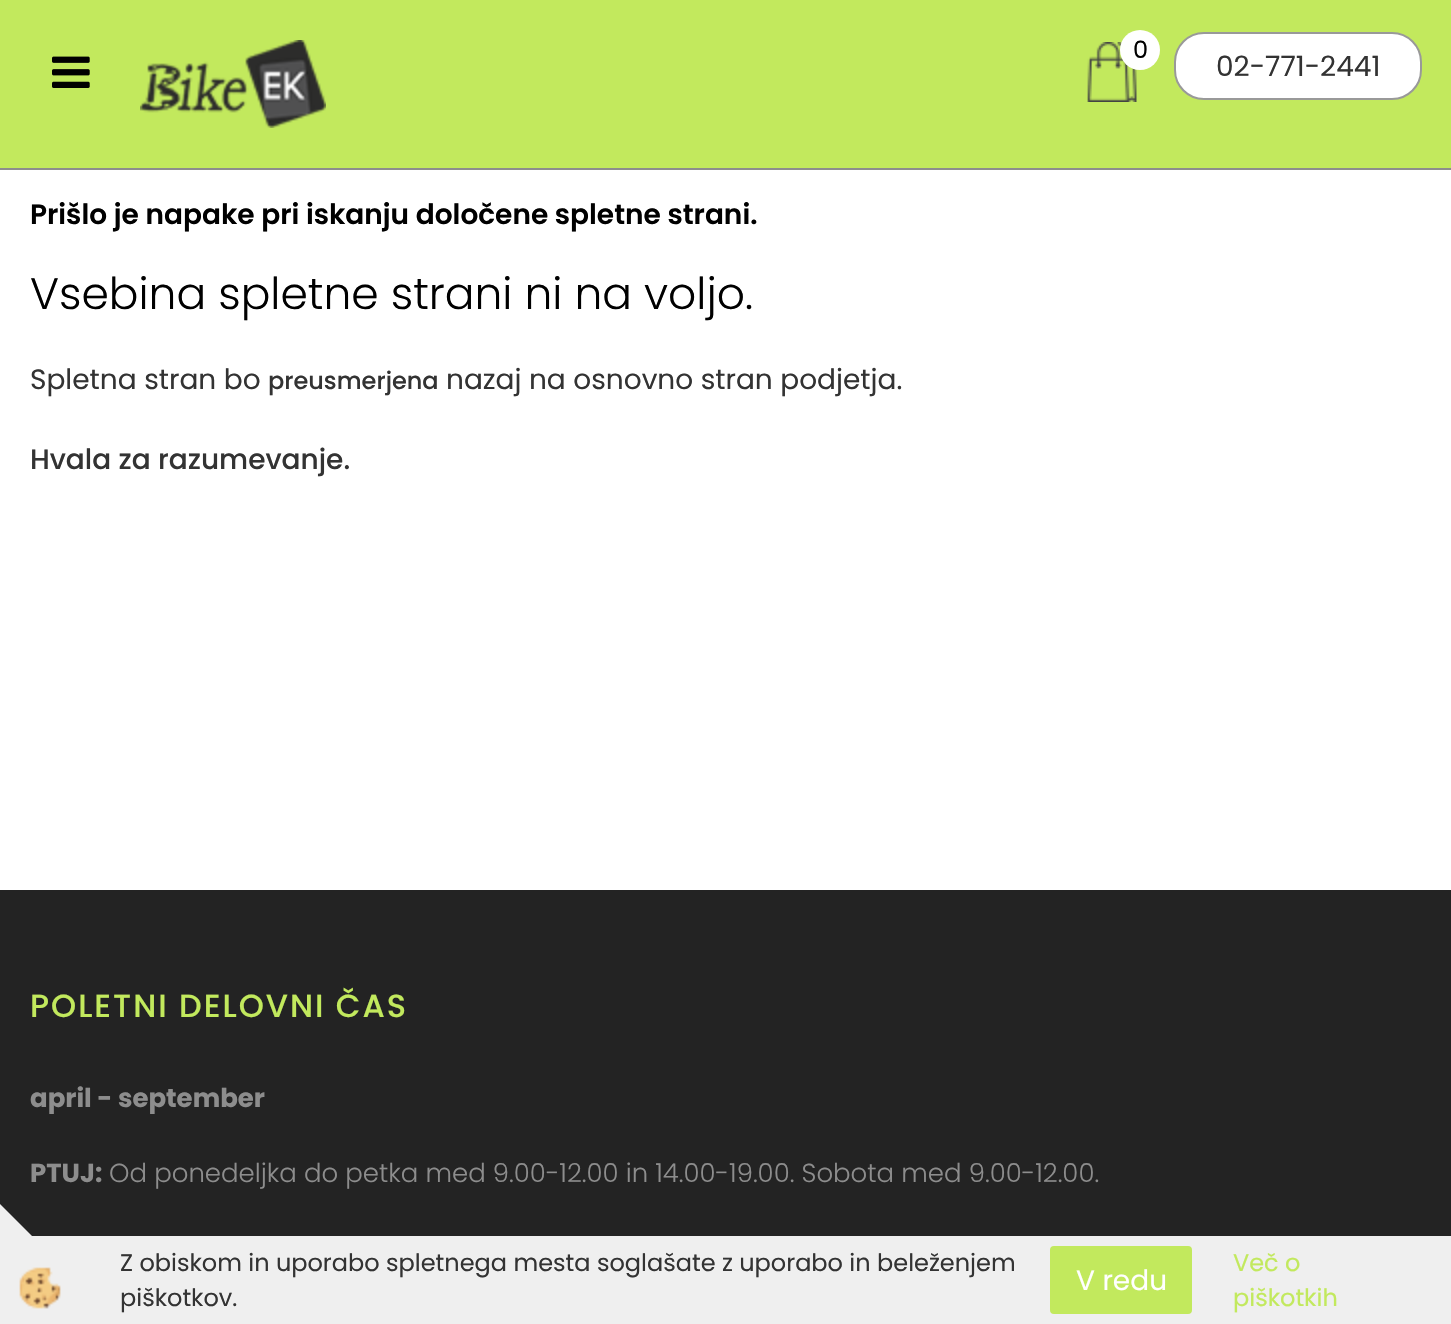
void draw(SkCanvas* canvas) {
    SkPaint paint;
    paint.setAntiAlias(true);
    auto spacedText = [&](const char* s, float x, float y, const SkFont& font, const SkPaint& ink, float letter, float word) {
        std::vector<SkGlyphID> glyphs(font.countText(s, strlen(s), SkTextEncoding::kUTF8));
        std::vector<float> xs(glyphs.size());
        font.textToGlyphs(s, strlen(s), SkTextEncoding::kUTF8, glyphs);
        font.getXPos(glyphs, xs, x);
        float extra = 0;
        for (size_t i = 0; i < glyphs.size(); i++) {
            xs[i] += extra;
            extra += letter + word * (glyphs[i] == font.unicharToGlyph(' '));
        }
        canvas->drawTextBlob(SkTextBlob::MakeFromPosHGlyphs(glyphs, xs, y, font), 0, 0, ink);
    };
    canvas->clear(0xFFFFFFFF);
    paint.setColor(0xFFC2E95D);
    canvas->drawRect(SkRect::MakeXYWH(0, 0, 1451, 168), paint);
    paint.setColor(0xFF8D8D8D);
    canvas->drawRect(SkRect::MakeXYWH(0, 168, 1451, 2), paint);
    canvas->drawImageRect(SkImages::DeferredFromEncodedData(SkData::MakeFromFileName("img1.png")), SkRect::MakeXYWH(52, 56, 38, 32), SkSamplingOptions());
    canvas->drawImageRect(SkImages::DeferredFromEncodedData(SkData::MakeFromFileName("img2.png")), SkRect::MakeXYWH(140, 40, 186, 88), SkSamplingOptions());
    canvas->drawImageRect(SkImages::DeferredFromEncodedData(SkData::MakeFromFileName("img3.png")), SkRect::MakeXYWH(1087, 42, 50, 60), SkSamplingOptions());
    paint.setColor(0xFFFFFFFF);
    canvas->drawCircle(1140, 50, 20, paint);
    SkFont font1(fontMgr->matchFamilyStyle("Poppins", SkFontStyle::Normal()), 24);
    font1.setSubpixel(true);
    paint.setColor(0xFF000000);
    canvas->drawString("0", 1133, 58, font1, paint);
    paint.setColor(0xFFFFFFFF);
    canvas->drawRoundRect(SkRect::MakeXYWH(1175, 33, 246, 66), 29, 29, paint);
    paint.setStyle(SkPaint::kStroke_Style);
    paint.setStrokeWidth(2);
    paint.setColor(0xFF999999);
    canvas->drawRoundRect(SkRect::MakeXYWH(1175, 33, 246, 66), 29, 29, paint);
    SkFont font2(fontMgr->matchFamilyStyle("Poppins", SkFontStyle::Normal()), 28);
    font2.setSubpixel(true);
    paint.setStyle(SkPaint::kFill_Style);
    paint.setColor(0xFF333333);
    canvas->drawString("02-771-2441", 1216, 76, font2, paint);
    SkFont font3(fontMgr->matchFamilyStyle("Poppins", SkFontStyle(600, SkFontStyle::kNormal_Width, SkFontStyle::kUpright_Slant)), 28);
    font3.setSubpixel(true);
    paint.setColor(0xFF000000);
    canvas->drawString("Prišlo je napake pri iskanju določene spletne strani.", 30, 224, font3, paint);
    SkFont font4(fontMgr->matchFamilyStyle("Poppins", SkFontStyle(300, SkFontStyle::kNormal_Width, SkFontStyle::kUpright_Slant)), 44);
    font4.setSubpixel(true);
    canvas->drawString("Vsebina spletne strani ni na voljo.", 30, 309, font4, paint);
    paint.setColor(0xFF333333);
    canvas->drawString("Spletna stran bo", 30, 389, font2, paint);
    SkFont font5(fontMgr->matchFamilyStyle("Poppins", SkFontStyle(500, SkFontStyle::kNormal_Width, SkFontStyle::kUpright_Slant)), 24);
    font5.setSubpixel(true);
    canvas->drawString("preusmerjena", 268, 389, font5, paint);
    canvas->drawString("nazaj na osnovno stran podjetja.", 446, 389, font2, paint);
    SkFont font6(fontMgr->matchFamilyStyle("Poppins", SkFontStyle(500, SkFontStyle::kNormal_Width, SkFontStyle::kUpright_Slant)), 28);
    font6.setSubpixel(true);
    canvas->drawString("Hvala za razumevanje.", 30, 469, font6, paint);
    paint.setColor(0xFF232323);
    canvas->drawRect(SkRect::MakeXYWH(0, 890, 1451, 346), paint);
    SkFont font7(fontMgr->matchFamilyStyle("Poppins", SkFontStyle(500, SkFontStyle::kNormal_Width, SkFontStyle::kUpright_Slant)), 32);
    font7.setSubpixel(true);
    paint.setColor(0xFFC2E95D);
    spacedText("POLETNI DELOVNI ČAS", 30, 1017, font7, paint, 2, 0);
    SkFont font8(fontMgr->matchFamilyStyle("Poppins", SkFontStyle::Bold()), 26);
    font8.setSubpixel(true);
    paint.setColor(0xFF8D8D8D);
    canvas->drawString("april - september", 30, 1107, font8, paint);
    canvas->drawString("PTUJ:", 30, 1182, font8, paint);
    SkFont font9(fontMgr->matchFamilyStyle("Poppins", SkFontStyle(300, SkFontStyle::kNormal_Width, SkFontStyle::kUpright_Slant)), 26);
    font9.setSubpixel(true);
    canvas->drawString("Od ponedeljka do petka med 9.00-12.00 in 14.00-19.00. Sobota med 9.00-12.00.", 109, 1182, font9, paint);
    paint.setColor(0xFFEFEFEF);
    canvas->drawRect(SkRect::MakeXYWH(32, 1236, 1419, 88), paint);
    canvas->drawPath(SkPathBuilder().moveTo(120, 1324).lineTo(0, 1324).lineTo(0, 1204).close().detach(), paint);
    canvas->drawImageRect(SkImages::DeferredFromEncodedData(SkData::MakeFromFileName("img4.png")), SkRect::MakeXYWH(19, 1267, 42, 42), SkSamplingOptions());
    paint.setColor(0xFF333333);
    canvas->drawString("Z obiskom in uporabo spletnega mesta soglašate z uporabo in beleženjem", 120, 1271, font1, paint);
    paint.setColor(0xFFC2E95D);
    canvas->drawRoundRect(SkRect::MakeXYWH(1051, 1247, 140, 66), 3, 3, paint);
    paint.setStyle(SkPaint::kStroke_Style);
    canvas->drawRoundRect(SkRect::MakeXYWH(1051, 1247, 140, 66), 3, 3, paint);
    paint.setStyle(SkPaint::kFill_Style);
    paint.setColor(0xFFFFFFFF);
    canvas->drawString("V redu", 1076, 1290, font2, paint);
    paint.setColor(0xFFC2E95D);
    canvas->drawString("Več o", 1233, 1271, font1, paint);
    canvas->drawString("piškotkih", 1233, 1306, font1, paint);
    paint.setColor(0xFF333333);
    canvas->drawString("piškotkov.", 120, 1306, font1, paint);
}
